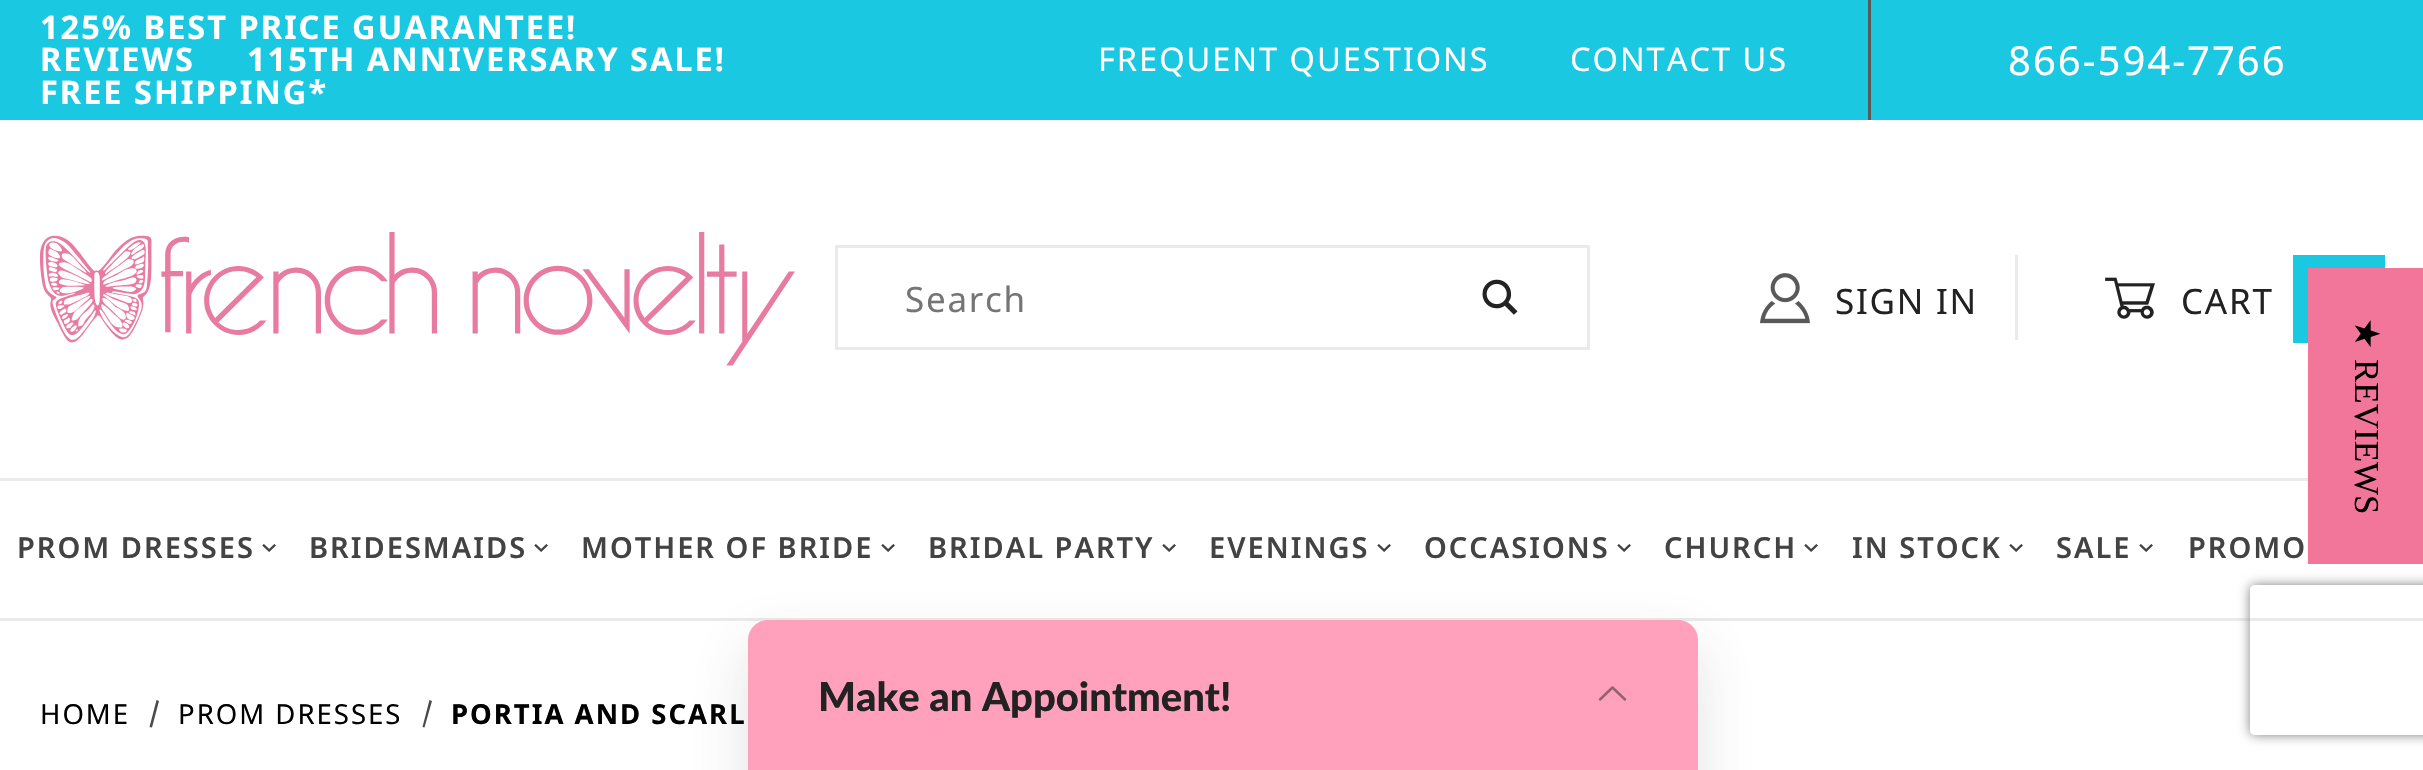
void draw(SkCanvas* canvas) {
    SkPaint paint;
    paint.setAntiAlias(true);
    auto spacedText = [&](const char* s, float x, float y, const SkFont& font, const SkPaint& ink, float letter, float word) {
        std::vector<SkGlyphID> glyphs(font.countText(s, strlen(s), SkTextEncoding::kUTF8));
        std::vector<float> xs(glyphs.size());
        font.textToGlyphs(s, strlen(s), SkTextEncoding::kUTF8, glyphs);
        font.getXPos(glyphs, xs, x);
        float extra = 0;
        for (size_t i = 0; i < glyphs.size(); i++) {
            xs[i] += extra;
            extra += letter + word * (glyphs[i] == font.unicharToGlyph(' '));
        }
        canvas->drawTextBlob(SkTextBlob::MakeFromPosHGlyphs(glyphs, xs, y, font), 0, 0, ink);
    };
    canvas->clear(0xFFFFFFFF);
    paint.setColor(0xFFEAEAEA);
    canvas->drawRect(SkRect::MakeXYWH(0, 478, 2308, 3), paint);
    paint.setColor(0xFF1AC8E2);
    canvas->drawRect(SkRect::MakeXYWH(0, 0, 2423, 120), paint);
    SkFont font1(fontMgr->matchFamilyStyle("Noto Sans", SkFontStyle::Bold()), 32.5f);
    font1.setSubpixel(true);
    paint.setColor(0xFFFFFFFF);
    spacedText("125% BEST PRICE GUARANTEE!", 40, 39, font1, paint, 2, 0);
    spacedText("REVIEWS", 40, 71, font1, paint, 2, 0);
    spacedText("115TH ANNIVERSARY SALE!", 247, 71, font1, paint, 2, 0);
    spacedText("FREE SHIPPING*", 40, 104, font1, paint, 2, 0);
    SkFont font2(fontMgr->matchFamilyStyle("Noto Sans", SkFontStyle::Normal()), 32.5f);
    font2.setSubpixel(true);
    spacedText("FREQUENT QUESTIONS", 1098, 71, font2, paint, 2, 0);
    spacedText("CONTACT US", 1570, 71, font2, paint, 2, 0);
    paint.setColor(0xFF595959);
    canvas->drawRect(SkRect::MakeXYWH(1868, 0, 3, 120), paint);
    SkFont font3(fontMgr->matchFamilyStyle("Noto Sans", SkFontStyle::Normal()), 40);
    font3.setSubpixel(true);
    paint.setColor(0xFFFFFFFF);
    spacedText("866-594-7766", 2008, 75, font3, paint, 2, 0);
    canvas->drawImageRect(SkImages::DeferredFromEncodedData(SkData::MakeFromFileName("img1.png")), SkRect::MakeXYWH(40, 232, 755, 134), SkSamplingOptions());
    paint.setStyle(SkPaint::kStroke_Style);
    paint.setStrokeWidth(3);
    paint.setColor(0xFFEAEAEA);
    canvas->drawRect(SkRect::MakeXYWH(836.5f, 246.5f, 752, 102), paint);
    SkFont font4(fontMgr->matchFamilyStyle("Noto Sans", SkFontStyle::Normal()), 35);
    font4.setSubpixel(true);
    paint.setStyle(SkPaint::kFill_Style);
    paint.setColor(0xFF757575);
    spacedText("Search", 905, 312, font4, paint, 1.75f, 0);
    canvas->drawImageRect(SkImages::DeferredFromEncodedData(SkData::MakeFromFileName("img2.png")), SkRect::MakeXYWH(1482, 279, 36, 36), SkSamplingOptions());
    paint.setColor(0xFFEAEAEA);
    canvas->drawRect(SkRect::MakeXYWH(2015, 255, 3, 85), paint);
    canvas->drawImageRect(SkImages::DeferredFromEncodedData(SkData::MakeFromFileName("img3.png")), SkRect::MakeXYWH(1760, 273, 50, 51), SkSamplingOptions());
    paint.setColor(0xFF222222);
    spacedText("SIGN IN", 1835, 314, font4, paint, 1.75f, 0);
    canvas->drawImageRect(SkImages::DeferredFromEncodedData(SkData::MakeFromFileName("img4.png")), SkRect::MakeXYWH(2105, 277, 50, 42), SkSamplingOptions());
    spacedText("CART", 2181, 314, font4, paint, 1.75f, 0);
    paint.setColor(0xFF1AC8E2);
    canvas->drawRect(SkRect::MakeXYWH(2293, 255, 92, 88), paint);
    paint.setColor(0xFFF2769A);
    canvas->drawRect(SkRect::MakeXYWH(2308, 268, 115, 296), paint);
    SkFont font5(fontMgr->matchFamilyStyle("DejaVu Sans", SkFontStyle::Normal()), 35);
    font5.setSubpixel(true);
    paint.setColor(0xFF000000);
    canvas->save();
    canvas->rotate(90, 2355, 318);
    canvas->drawString("★", 2355, 318, font5, paint);
    canvas->restore();
    SkFont font6(fontMgr->matchFamilyStyle("Liberation Serif", SkFontStyle::Normal()), 35);
    font6.setSubpixel(true);
    canvas->save();
    canvas->rotate(90, 2355, 359);
    canvas->drawString("REVIEWS", 2355, 359, font6, paint);
    canvas->restore();
    paint.setColor(0xFFEAEAEA);
    canvas->drawRect(SkRect::MakeXYWH(0, 618, 2423, 3), paint);
    SkFont font7(fontMgr->matchFamilyStyle("Noto Sans", SkFontStyle(600, SkFontStyle::kNormal_Width, SkFontStyle::kUpright_Slant)), 29);
    font7.setSubpixel(true);
    paint.setColor(0xFF434343);
    spacedText("PROM DRESSES", 17, 558, font7, paint, 2, 0);
    SkFont font8(fontMgr->matchFamilyStyle("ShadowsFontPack", SkFontStyle::Normal()), 14);
    font8.setSubpixel(true);
    canvas->save();
    canvas->rotate(90, 263, 541);
    spacedText("3", 263, 541, font8, paint, 2, 0);
    canvas->restore();
    spacedText("BRIDESMAIDS", 309, 558, font7, paint, 2, 0);
    canvas->save();
    canvas->rotate(90, 535, 541);
    spacedText("3", 535, 541, font8, paint, 2, 0);
    canvas->restore();
    spacedText("MOTHER OF BRIDE", 581, 558, font7, paint, 2, 0);
    canvas->save();
    canvas->rotate(90, 882, 541);
    spacedText("3", 882, 541, font8, paint, 2, 0);
    canvas->restore();
    spacedText("BRIDAL PARTY", 928, 558, font7, paint, 2, 0);
    canvas->save();
    canvas->rotate(90, 1163, 541);
    spacedText("3", 1163, 541, font8, paint, 2, 0);
    canvas->restore();
    spacedText("EVENINGS", 1209, 558, font7, paint, 2, 0);
    canvas->save();
    canvas->rotate(90, 1378, 541);
    spacedText("3", 1378, 541, font8, paint, 2, 0);
    canvas->restore();
    spacedText("OCCASIONS", 1424, 558, font7, paint, 2, 0);
    canvas->save();
    canvas->rotate(90, 1618, 541);
    spacedText("3", 1618, 541, font8, paint, 2, 0);
    canvas->restore();
    spacedText("CHURCH", 1664, 558, font7, paint, 2, 0);
    canvas->save();
    canvas->rotate(90, 1805, 541);
    spacedText("3", 1805, 541, font8, paint, 2, 0);
    canvas->restore();
    spacedText("IN STOCK", 1852, 558, font7, paint, 2, 0);
    canvas->save();
    canvas->rotate(90, 2010, 541);
    spacedText("3", 2010, 541, font8, paint, 2, 0);
    canvas->restore();
    spacedText("SALE", 2056, 558, font7, paint, 2, 0);
    canvas->save();
    canvas->rotate(90, 2140, 541);
    spacedText("3", 2140, 541, font8, paint, 2, 0);
    canvas->restore();
    spacedText("PROMO", 2188, 558, font7, paint, 2, 0);
    SkFont font9(fontMgr->matchFamilyStyle("Noto Sans", SkFontStyle::Normal()), 27.5f);
    font9.setSubpixel(true);
    paint.setColor(0xFF000000);
    spacedText("HOME", 40, 724, font9, paint, 2, 0);
    paint.setColor(0xFF4A4A4A);
    canvas->drawPath(SkPathBuilder().moveTo(156.5f, 700).lineTo(159, 701).lineTo(152, 727.5f).lineTo(149.5f, 727).close().detach(), paint);
    paint.setColor(0xFF000000);
    spacedText("PROM DRESSES", 178, 724, font9, paint, 2, 0);
    paint.setColor(0xFF4A4A4A);
    canvas->drawPath(SkPathBuilder().moveTo(429.5f, 700).lineTo(432, 701).lineTo(424.5f, 727.5f).lineTo(422.5f, 727).close().detach(), paint);
    SkFont font10(fontMgr->matchFamilyStyle("Noto Sans", SkFontStyle::Bold()), 27.5f);
    font10.setSubpixel(true);
    paint.setColor(0xFF000000);
    spacedText("PORTIA AND SCARL", 451, 724, font10, paint, 2, 0);
    paint.setColor(0x26363D4D);
    paint.setMaskFilter(SkMaskFilter::MakeBlur(kNormal_SkBlurStyle, 30));
    canvas->drawRoundRect(SkRect::MakeXYWH(748, 645, 950, 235), 20, 20, paint);
    paint.setMaskFilter(nullptr);
    paint.setColor(0xFFFFA1BC);
    canvas->drawPath(SkPathBuilder().moveTo(768, 620).lineTo(1678, 620).cubicTo(1689, 620, 1698, 629, 1698, 640).lineTo(1698, 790).lineTo(748, 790).lineTo(748, 640).cubicTo(748, 629, 757, 620, 768, 620).close().detach(), paint);
    SkFont font11(fontMgr->matchFamilyStyle("Lato", SkFontStyle(900, SkFontStyle::kNormal_Width, SkFontStyle::kUpright_Slant)), 40);
    font11.setSubpixel(true);
    paint.setColor(0xFF222222);
    canvas->drawString("Make an Appointment!", 818, 711, font11, paint);
    paint.setStyle(SkPaint::kStroke_Style);
    paint.setStrokeWidth(2.5f);
    paint.setStrokeCap(SkPaint::kRound_Cap);
    paint.setStrokeJoin(SkPaint::kRound_Join);
    paint.setColor(0xFF91626F);
    canvas->drawPath(SkPathBuilder().moveTo(1625, 699.5f).lineTo(1612.5f, 687.5f).lineTo(1600, 699.5f).detach(), paint);
    canvas->save();
    canvas->clipPath(SkPathBuilder(SkPathFillType::kEvenOdd).moveTo(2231, 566).lineTo(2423, 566).lineTo(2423, 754).lineTo(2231, 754).close().moveTo(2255, 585).lineTo(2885, 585).cubicTo(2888, 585, 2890, 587, 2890, 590).lineTo(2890, 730).cubicTo(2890, 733, 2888, 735, 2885, 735).lineTo(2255, 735).cubicTo(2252, 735, 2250, 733, 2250, 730).lineTo(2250, 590).cubicTo(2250, 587, 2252, 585, 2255, 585).close().detach(), true);
    paint.setStyle(SkPaint::kFill_Style);
    paint.setColor(0xFF808080);
    paint.setMaskFilter(SkMaskFilter::MakeBlur(kNormal_SkBlurStyle, 6));
    canvas->drawRoundRect(SkRect::MakeXYWH(2250, 585, 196, 150), 5, 5, paint);
    paint.setMaskFilter(nullptr);
    canvas->restore();
}
